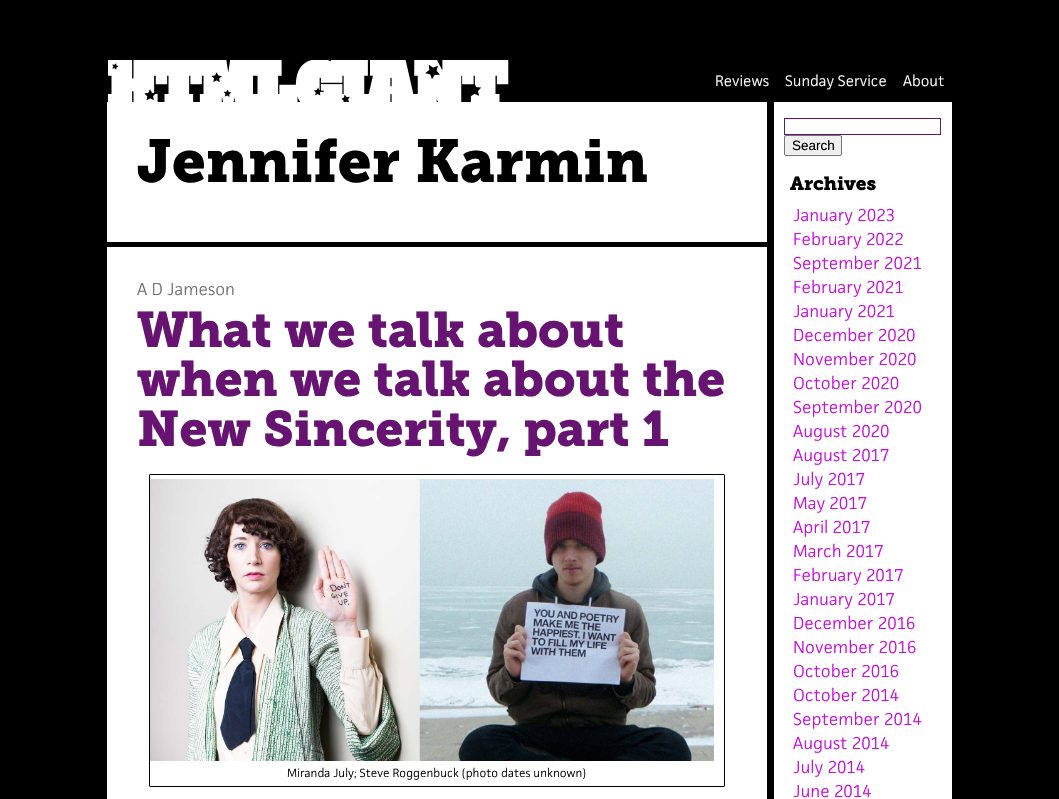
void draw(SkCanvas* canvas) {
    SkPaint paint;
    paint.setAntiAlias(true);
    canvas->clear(0xFF000000);
    canvas->drawImageRect(SkImages::DeferredFromEncodedData(SkData::MakeFromFileName("img1.png")), SkRect::MakeXYWH(108, 60, 401, 42), SkSamplingOptions());
    SkFont font1(fontMgr->matchFamilyStyle("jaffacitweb", SkFontStyle::Normal()), 14);
    font1.setSubpixel(true);
    paint.setColor(0xFFFFFFFF);
    canvas->drawString("Reviews", 715, 86, font1, paint);
    canvas->drawString("Sunday Service", 785, 86, font1, paint);
    canvas->drawString("About", 903, 86, font1, paint);
    canvas->drawRect(SkRect::MakeXYWH(107, 102, 660, 140), paint);
    SkFont font2(fontMgr->matchFamilyStyle("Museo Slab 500", SkFontStyle::Bold()), 60);
    font2.setSubpixel(true);
    paint.setColor(0xFF000000);
    canvas->drawString("Jennifer Karmin", 137, 182, font2, paint);
    paint.setColor(0xFFFFFFFF);
    canvas->drawRect(SkRect::MakeXYWH(107, 247, 660, 552), paint);
    SkFont font3(fontMgr->matchFamilyStyle("jaffacitweb", SkFontStyle::Normal()), 16);
    font3.setSubpixel(true);
    paint.setColor(0xFF737070);
    canvas->drawString("A D Jameson", 137, 295, font3, paint);
    SkFont font4(fontMgr->matchFamilyStyle("Museo Slab 500", SkFontStyle::Bold()), 49.6f);
    font4.setSubpixel(true);
    paint.setColor(0xFF671371);
    canvas->drawString("What we talk about", 137, 347, font4, paint);
    canvas->drawString("when we talk about the", 137, 396, font4, paint);
    canvas->drawString("New Sincerity, part 1", 137, 446, font4, paint);
    paint.setStyle(SkPaint::kStroke_Style);
    paint.setStrokeWidth(1);
    paint.setColor(0xFF000000);
    canvas->drawRoundRect(SkRect::MakeXYWH(149.5f, 474.5f, 575, 312), 0.5f, 0.5f, paint);
    canvas->drawImageRect(SkImages::DeferredFromEncodedData(SkData::MakeFromFileName("img2.png")), SkRect::MakeXYWH(150, 479, 564, 282), SkSamplingOptions());
    SkFont font5(fontMgr->matchFamilyStyle("jaffacitweb", SkFontStyle::Normal()), 11);
    font5.setSubpixel(true);
    paint.setStyle(SkPaint::kFill_Style);
    canvas->drawString("Miranda July; Steve Roggenbuck (photo dates unknown)", 287, 777, font5, paint);
    paint.setColor(0xFFFFFFFF);
    canvas->drawRect(SkRect::MakeXYWH(774, 102, 178, 697), paint);
    paint.setStyle(SkPaint::kStroke_Style);
    paint.setColor(0xFF671371);
    canvas->drawRect(SkRect::MakeXYWH(784.5f, 118.5f, 156, 16), paint);
    paint.setStyle(SkPaint::kFill_Style);
    paint.setColor(0xFFEFEFEF);
    canvas->drawRoundRect(SkRect::MakeXYWH(784.5f, 135.5f, 57, 20), 1.5f, 1.5f, paint);
    paint.setStyle(SkPaint::kStroke_Style);
    paint.setColor(0xFF767676);
    canvas->drawRoundRect(SkRect::MakeXYWH(784.5f, 135.5f, 57, 20), 1.5f, 1.5f, paint);
    SkFont font6(fontMgr->matchFamilyStyle("Liberation Sans", SkFontStyle::Normal()), 13.5f);
    font6.setSubpixel(true);
    paint.setStyle(SkPaint::kFill_Style);
    paint.setColor(0xFF000000);
    canvas->drawString("Search", 792, 150, font6, paint);
    SkFont font7(fontMgr->matchFamilyStyle("Museo Slab 500", SkFontStyle::Bold()), 19);
    font7.setSubpixel(true);
    canvas->drawString("Archives", 790, 190, font7, paint);
    paint.setColor(0xFFC70ADD);
    canvas->drawString("January 2023", 793, 221, font3, paint);
    canvas->drawString("February 2022", 793, 245, font3, paint);
    canvas->drawString("September 2021", 793, 269, font3, paint);
    canvas->drawString("February 2021", 793, 293, font3, paint);
    canvas->drawString("January 2021", 793, 317, font3, paint);
    canvas->drawString("December 2020", 793, 341, font3, paint);
    canvas->drawString("November 2020", 793, 365, font3, paint);
    canvas->drawString("October 2020", 793, 389, font3, paint);
    canvas->drawString("September 2020", 793, 413, font3, paint);
    canvas->drawString("August 2020", 793, 437, font3, paint);
    canvas->drawString("August 2017", 793, 461, font3, paint);
    canvas->drawString("July 2017", 793, 485, font3, paint);
    canvas->drawString("May 2017", 793, 509, font3, paint);
    canvas->drawString("April 2017", 793, 533, font3, paint);
    canvas->drawString("March 2017", 793, 557, font3, paint);
    canvas->drawString("February 2017", 793, 581, font3, paint);
    canvas->drawString("January 2017", 793, 605, font3, paint);
    canvas->drawString("December 2016", 793, 629, font3, paint);
    canvas->drawString("November 2016", 793, 653, font3, paint);
    canvas->drawString("October 2016", 793, 677, font3, paint);
    canvas->drawString("October 2014", 793, 701, font3, paint);
    canvas->drawString("September 2014", 793, 725, font3, paint);
    canvas->drawString("August 2014", 793, 749, font3, paint);
    canvas->drawString("July 2014", 793, 773, font3, paint);
    canvas->drawString("June 2014", 793, 797, font3, paint);
}
